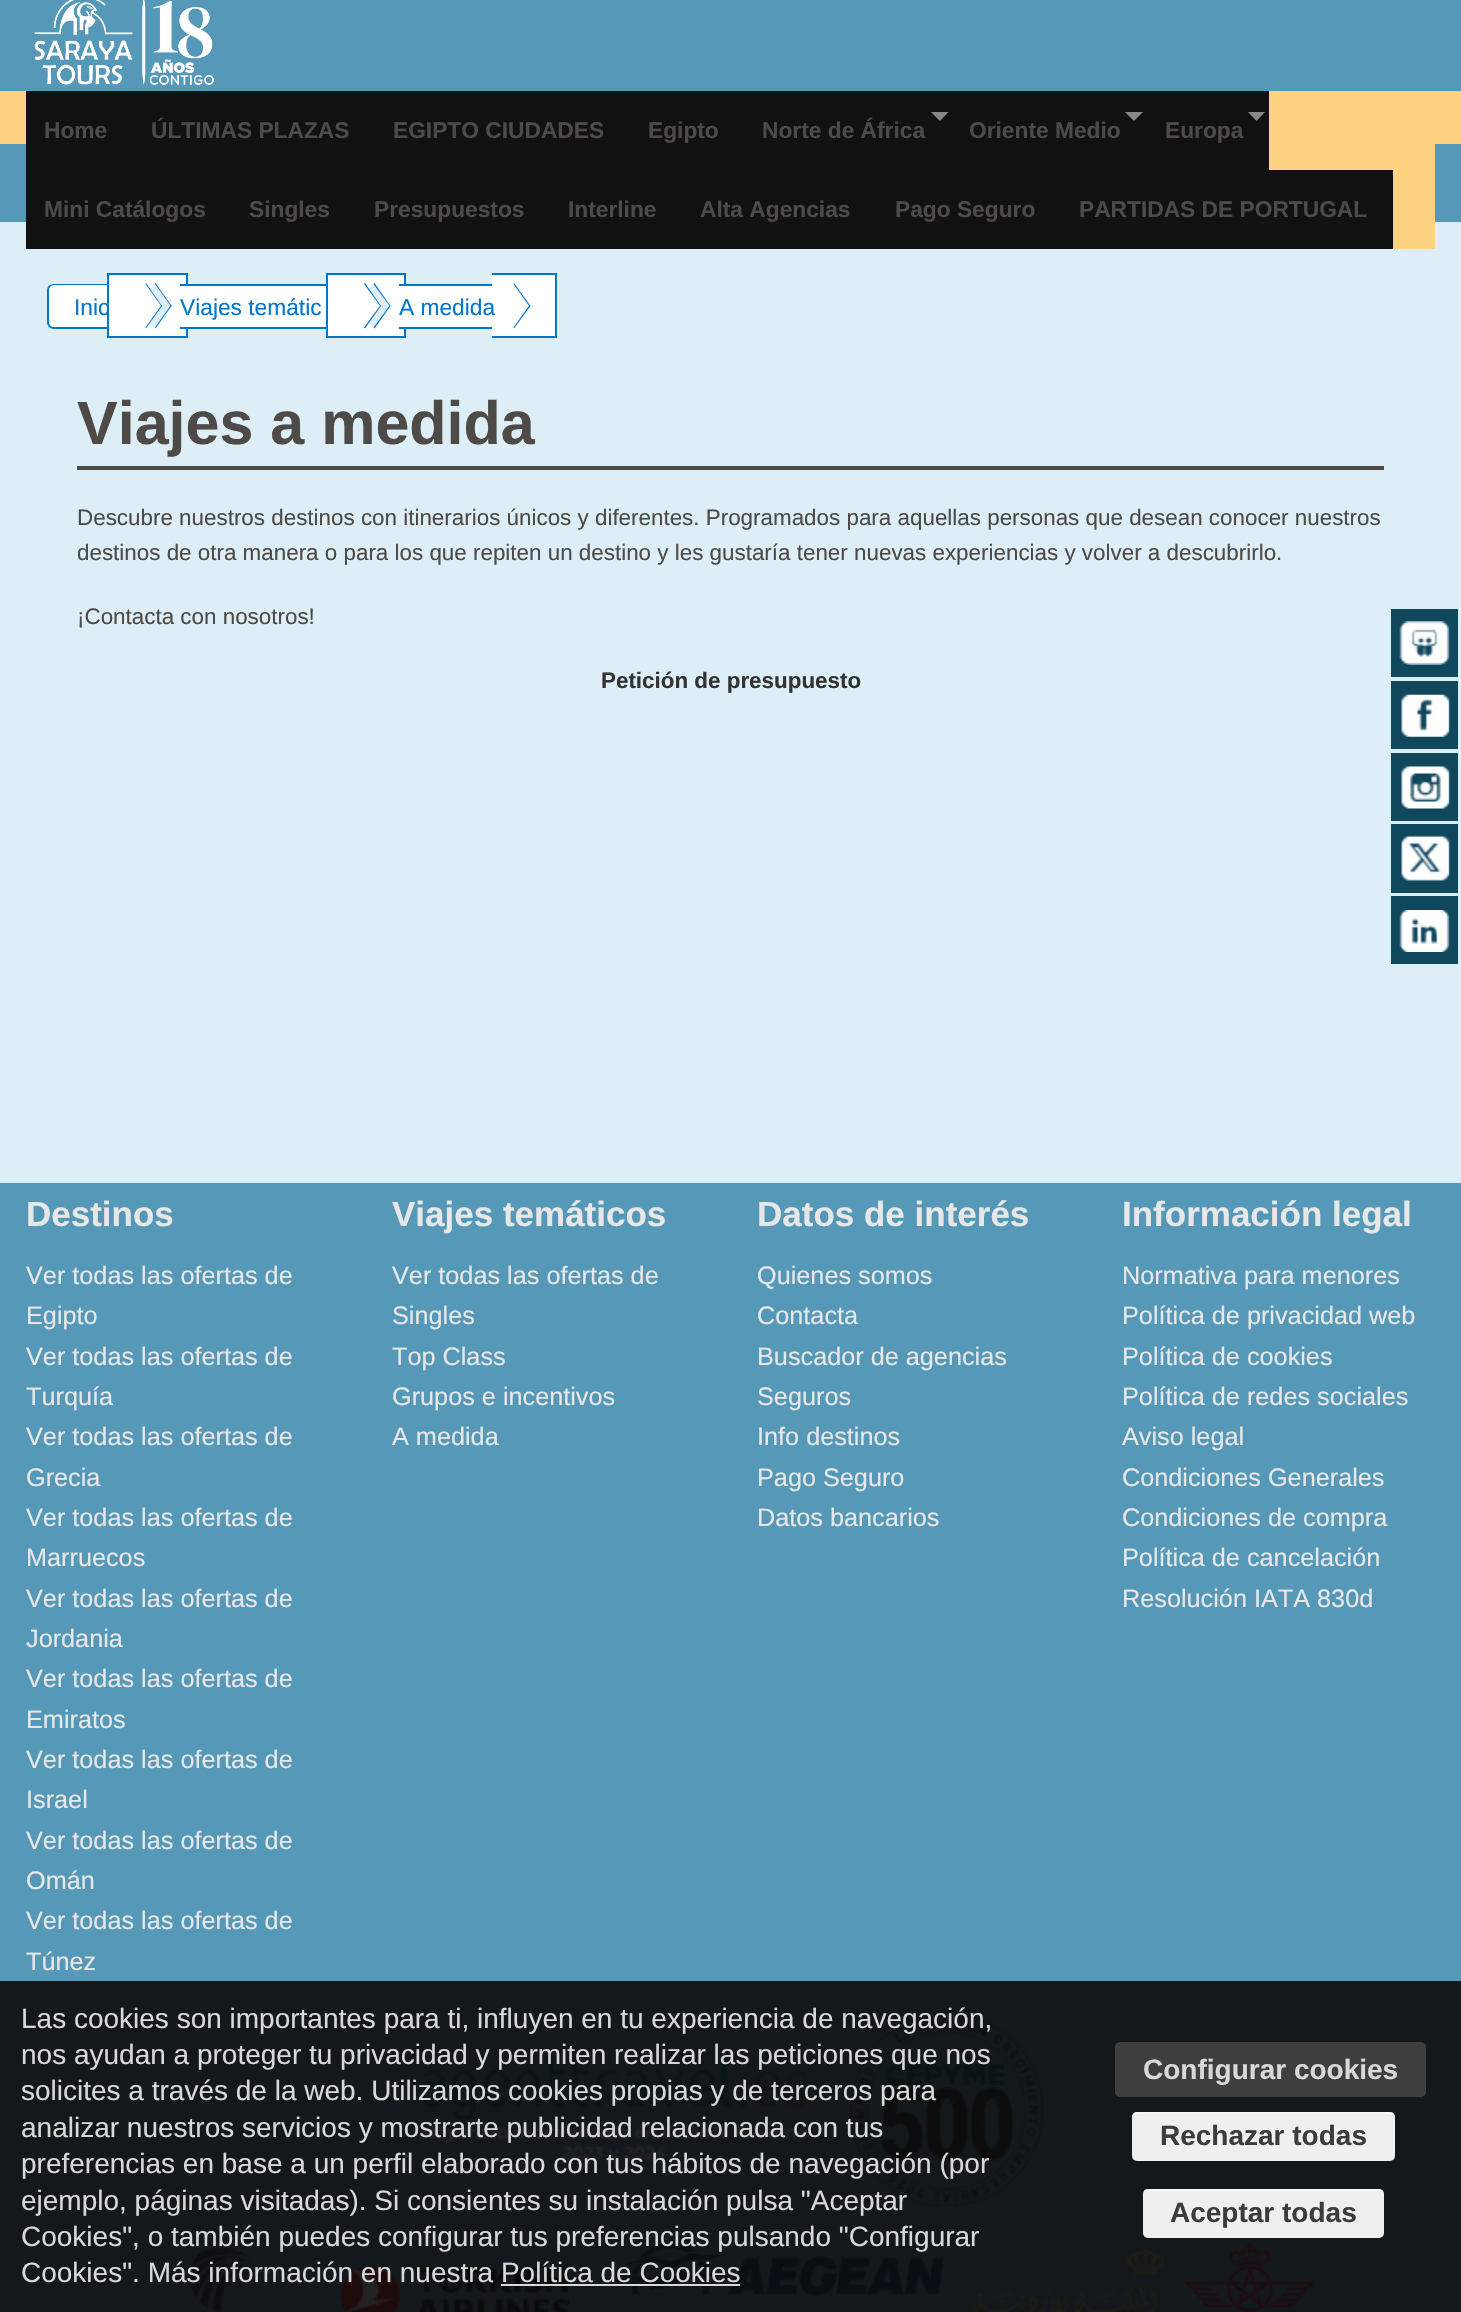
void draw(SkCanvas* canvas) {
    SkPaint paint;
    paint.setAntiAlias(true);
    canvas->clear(0xFF5698B8);
    canvas->drawImageRect(SkImages::DeferredFromEncodedData(SkData::MakeFromFileName("img1.png")), SkRect::MakeXYWH(34, 0, 180, 85), SkSamplingOptions());
    paint.setColor(0xFFFDD281);
    canvas->drawRect(SkRect::MakeXYWH(0, 91, 1461, 53), paint);
    paint.setColor(0xFFDDEEF6);
    canvas->drawRect(SkRect::MakeXYWH(0, 222, 1461, 961), paint);
    paint.setColor(0xFFFDD281);
    canvas->drawRect(SkRect::MakeXYWH(1269, 144, 166, 105), paint);
    paint.setColor(0xFF111111);
    canvas->drawRect(SkRect::MakeXYWH(26, 91, 1243, 79), paint);
    SkFont font1(fontMgr->matchFamilyStyle("Liberation Sans", SkFontStyle::Bold()), 22.75f);
    font1.setSubpixel(true);
    paint.setColor(0xFF4D4A47);
    canvas->drawString("Home", 44, 138, font1, paint);
    canvas->drawString("ÚLTIMAS PLAZAS", 151, 138, font1, paint);
    canvas->drawString("EGIPTO CIUDADES", 393, 138, font1, paint);
    canvas->drawString("Egipto", 648, 138, font1, paint);
    canvas->drawString("Norte de África", 762, 138, font1, paint);
    paint.setColor(0xFF888888);
    canvas->drawPath(SkPathBuilder().moveTo(931, 112).lineTo(948.5f, 112).lineTo(940, 121).close().detach(), paint);
    canvas->drawPath(SkPathBuilder().moveTo(1125, 112).lineTo(1143, 112).lineTo(1134, 121).close().detach(), paint);
    paint.setColor(0xFF4D4A47);
    canvas->drawString("Oriente Medio", 969, 138, font1, paint);
    paint.setColor(0xFF888888);
    canvas->drawPath(SkPathBuilder().moveTo(1248, 112).lineTo(1265, 112).lineTo(1256.5f, 121).close().detach(), paint);
    paint.setColor(0xFF4D4A47);
    canvas->drawString("Europa", 1165, 138, font1, paint);
    paint.setColor(0xFF111111);
    canvas->drawRect(SkRect::MakeXYWH(26, 170, 1367, 79), paint);
    paint.setColor(0xFF4D4A47);
    canvas->drawString("Mini Catálogos", 44, 217, font1, paint);
    canvas->drawString("Singles", 249, 217, font1, paint);
    canvas->drawString("Presupuestos", 374, 217, font1, paint);
    canvas->drawString("Interline", 568, 217, font1, paint);
    canvas->drawString("Alta Agencias", 700, 217, font1, paint);
    canvas->drawString("Pago Seguro", 895, 217, font1, paint);
    canvas->drawString("PARTIDAS DE PORTUGAL", 1079, 217, font1, paint);
    paint.setColor(0xFFFFFFFF);
    canvas->drawPath(SkPathBuilder().moveTo(54, 284).lineTo(126, 284).lineTo(126, 329).lineTo(54, 329).cubicTo(50, 329, 47, 326, 47, 322).lineTo(47, 291).cubicTo(47, 287, 50, 284, 54, 284).close().detach(), paint);
    paint.setColor(0xFF0077CC);
    canvas->drawPath(SkPathBuilder(SkPathFillType::kEvenOdd).moveTo(54, 284).lineTo(126, 284).lineTo(126, 329).lineTo(54, 329).cubicTo(50, 329, 47, 326, 47, 322).lineTo(47, 290).cubicTo(47, 287, 50, 284, 54, 284).close().moveTo(54, 285).lineTo(126, 285).lineTo(126, 327).lineTo(54, 327).cubicTo(51, 327, 49, 325, 49, 322).lineTo(49, 290).cubicTo(49, 288, 51, 285, 54, 285).close().detach(), paint);
    paint.setColor(0xFFFFFFFF);
    canvas->drawRect(SkRect::MakeXYWH(109, 275, 77, 61), paint);
    paint.setColor(0xFF0077CC);
    canvas->drawRect(SkRect::MakeXYWH(107, 273, 80, 2), paint);
    canvas->drawRect(SkRect::MakeXYWH(186, 273, 2, 65), paint);
    canvas->drawRect(SkRect::MakeXYWH(107, 336, 80, 2), paint);
    SkFont font2(fontMgr->matchFamilyStyle("Liberation Sans", SkFontStyle::Normal()), 22.75f);
    font2.setSubpixel(true);
    canvas->drawString("Inic", 74, 315, font2, paint);
    paint.setColor(0xFFDDEEF6);
    canvas->drawPath(SkPathBuilder().moveTo(155, 283).lineTo(172, 306).lineTo(155, 329).lineTo(139, 306).close().detach(), paint);
    paint.setColor(0xFF0077CC);
    canvas->drawPath(SkPathBuilder().moveTo(155.5f, 283).lineTo(171.5f, 306).lineTo(171, 306.5f).lineTo(155, 284).close().detach(), paint);
    canvas->drawPath(SkPathBuilder().moveTo(171, 305).lineTo(171.5f, 306).lineTo(155.5f, 328.5f).lineTo(155, 327.5f).close().detach(), paint);
    paint.setColor(0xFFFFFFFF);
    canvas->drawPath(SkPathBuilder().moveTo(146, 283).lineTo(162, 306).lineTo(146, 329).lineTo(130, 306).close().detach(), paint);
    paint.setColor(0xFF0077CC);
    canvas->drawPath(SkPathBuilder().moveTo(146, 283).lineTo(162, 306).lineTo(161.5f, 306.5f).lineTo(145.5f, 284).close().detach(), paint);
    canvas->drawPath(SkPathBuilder().moveTo(161.5f, 305).lineTo(162, 306).lineTo(146, 328.5f).lineTo(145.5f, 327.5f).close().detach(), paint);
    canvas->drawRect(SkRect::MakeXYWH(107, 273, 2, 65), paint);
    paint.setColor(0xFFFFFFFF);
    canvas->drawRect(SkRect::MakeXYWH(186, 286, 140, 41), paint);
    paint.setColor(0xFF0077CC);
    canvas->drawRect(SkRect::MakeXYWH(180, 284, 146, 2), paint);
    canvas->drawRect(SkRect::MakeXYWH(180, 327, 146, 2), paint);
    paint.setColor(0xFFFFFFFF);
    canvas->drawRect(SkRect::MakeXYWH(328, 275, 76, 61), paint);
    paint.setColor(0xFF0077CC);
    canvas->drawRect(SkRect::MakeXYWH(326, 273, 80, 2), paint);
    canvas->drawRect(SkRect::MakeXYWH(404, 273, 2, 65), paint);
    canvas->drawRect(SkRect::MakeXYWH(326, 336, 80, 2), paint);
    canvas->drawString("Viajes temátic", 180, 315, font2, paint);
    paint.setColor(0xFFDDEEF6);
    canvas->drawPath(SkPathBuilder().moveTo(374, 283).lineTo(390, 306).lineTo(374, 329).lineTo(358, 306).close().detach(), paint);
    paint.setColor(0xFF0077CC);
    canvas->drawPath(SkPathBuilder().moveTo(374.5f, 283).lineTo(390.5f, 306).lineTo(390, 306.5f).lineTo(373.5f, 284).close().detach(), paint);
    canvas->drawPath(SkPathBuilder().moveTo(390, 305).lineTo(390.5f, 306).lineTo(374.5f, 328.5f).lineTo(373.5f, 327.5f).close().detach(), paint);
    paint.setColor(0xFFFFFFFF);
    canvas->drawPath(SkPathBuilder().moveTo(365, 283).lineTo(381, 306).lineTo(365, 329).lineTo(349, 306).close().detach(), paint);
    paint.setColor(0xFF0077CC);
    canvas->drawPath(SkPathBuilder().moveTo(365, 283).lineTo(381, 306).lineTo(380.5f, 306.5f).lineTo(364, 284).close().detach(), paint);
    canvas->drawPath(SkPathBuilder().moveTo(380.5f, 305).lineTo(381, 306).lineTo(365, 328.5f).lineTo(364, 327.5f).close().detach(), paint);
    canvas->drawRect(SkRect::MakeXYWH(326, 273, 2, 65), paint);
    paint.setColor(0xFFFFFFFF);
    canvas->drawRect(SkRect::MakeXYWH(404, 286, 88, 41), paint);
    paint.setColor(0xFF0077CC);
    canvas->drawRect(SkRect::MakeXYWH(399, 284, 96, 2), paint);
    canvas->drawRect(SkRect::MakeXYWH(399, 327, 96, 2), paint);
    paint.setColor(0xFFFFFFFF);
    canvas->drawRect(SkRect::MakeXYWH(492, 275, 63, 61), paint);
    paint.setColor(0xFF0077CC);
    canvas->drawRect(SkRect::MakeXYWH(492, 273, 65, 2), paint);
    canvas->drawRect(SkRect::MakeXYWH(555, 273, 2, 65), paint);
    canvas->drawRect(SkRect::MakeXYWH(492, 336, 65, 2), paint);
    canvas->drawString("A medida", 399, 315, font2, paint);
    canvas->drawPath(SkPathBuilder().moveTo(514, 283).lineTo(530.5f, 306).lineTo(529.5f, 306.5f).lineTo(513.5f, 284).close().detach(), paint);
    canvas->drawPath(SkPathBuilder().moveTo(529.5f, 305).lineTo(530.5f, 306).lineTo(514, 328.5f).lineTo(513.5f, 327.5f).close().detach(), paint);
    paint.setColor(0xFF4D4A47);
    canvas->drawRect(SkRect::MakeXYWH(77, 466, 1307, 4), paint);
    SkFont font3(fontMgr->matchFamilyStyle("Liberation Sans", SkFontStyle::Bold()), 61);
    font3.setSubpixel(true);
    canvas->drawString("Viajes a medida", 77, 444, font3, paint);
    SkFont font4(fontMgr->matchFamilyStyle("Liberation Sans", SkFontStyle::Normal()), 22.4f);
    font4.setSubpixel(true);
    canvas->drawString("Descubre nuestros destinos con itinerarios únicos y diferentes. Programados para aquellas personas que desean conocer nuestros", 77, 525, font4, paint);
    canvas->drawString("destinos de otra manera o para los que repiten un destino y les gustaría tener nuevas experiencias y volver a descubrirlo.", 77, 560, font4, paint);
    canvas->drawString("¡Contacta con nosotros!", 77, 624, font4, paint);
    SkFont font5(fontMgr->matchFamilyStyle("Liberation Sans", SkFontStyle::Bold()), 22.4f);
    font5.setSubpixel(true);
    paint.setColor(0xFF333333);
    canvas->drawString("Petición de presupuesto", 601, 688, font5, paint);
    paint.setColor(0xFF0F475D);
    canvas->drawRect(SkRect::MakeXYWH(1391, 609, 67, 68), paint);
    canvas->drawImageRect(SkImages::DeferredFromEncodedData(SkData::MakeFromFileName("img2.png")), SkRect::MakeXYWH(1399, 621, 51, 44), SkSamplingOptions());
    canvas->drawRect(SkRect::MakeXYWH(1391, 681, 67, 68), paint);
    canvas->drawImageRect(SkImages::DeferredFromEncodedData(SkData::MakeFromFileName("img3.png")), SkRect::MakeXYWH(1401, 694, 49, 43), SkSamplingOptions());
    canvas->drawRect(SkRect::MakeXYWH(1391, 753, 67, 68), paint);
    canvas->drawImageRect(SkImages::DeferredFromEncodedData(SkData::MakeFromFileName("img4.png")), SkRect::MakeXYWH(1401, 766, 49, 43), SkSamplingOptions());
    canvas->drawRect(SkRect::MakeXYWH(1391, 824, 67, 69), paint);
    canvas->drawImageRect(SkImages::DeferredFromEncodedData(SkData::MakeFromFileName("img5.png")), SkRect::MakeXYWH(1401, 835, 49, 46), SkSamplingOptions());
    canvas->drawRect(SkRect::MakeXYWH(1391, 896, 67, 68), paint);
    canvas->drawImageRect(SkImages::DeferredFromEncodedData(SkData::MakeFromFileName("img6.png")), SkRect::MakeXYWH(1399, 910, 51, 42), SkSamplingOptions());
    paint.setColor(0xFF12181B);
    canvas->drawRect(SkRect::MakeXYWH(0, 1981, 1461, 331), paint);
    SkFont font6(fontMgr->matchFamilyStyle("Liberation Sans", SkFontStyle::Bold()), 35);
    font6.setSubpixel(true);
    paint.setColor(0xFFE7E7E7);
    canvas->drawString("Destinos", 26, 1226, font6, paint);
    SkFont font7(fontMgr->matchFamilyStyle("Liberation Sans", SkFontStyle::Normal()), 25.25f);
    font7.setSubpixel(true);
    canvas->drawString("Ver todas las ofertas de", 26, 1284, font7, paint);
    canvas->drawString("Egipto", 26, 1324, font7, paint);
    canvas->drawString("Ver todas las ofertas de", 26, 1365, font7, paint);
    canvas->drawString("Turquía", 26, 1405, font7, paint);
    canvas->drawString("Ver todas las ofertas de", 26, 1445, font7, paint);
    canvas->drawString("Grecia", 26, 1486, font7, paint);
    canvas->drawString("Ver todas las ofertas de", 26, 1526, font7, paint);
    canvas->drawString("Marruecos", 26, 1566, font7, paint);
    canvas->drawString("Ver todas las ofertas de", 26, 1607, font7, paint);
    canvas->drawString("Jordania", 26, 1647, font7, paint);
    canvas->drawString("Ver todas las ofertas de", 26, 1687, font7, paint);
    canvas->drawString("Emiratos", 26, 1728, font7, paint);
    canvas->drawString("Ver todas las ofertas de", 26, 1768, font7, paint);
    canvas->drawString("Israel", 26, 1808, font7, paint);
    canvas->drawString("Ver todas las ofertas de", 26, 1849, font7, paint);
    canvas->drawString("Omán", 26, 1889, font7, paint);
    canvas->drawString("Ver todas las ofertas de", 26, 1929, font7, paint);
    canvas->drawString("Túnez", 26, 1970, font7, paint);
    canvas->drawString("Viajes temáticos", 392, 1226, font6, paint);
    canvas->drawString("Ver todas las ofertas de", 392, 1284, font7, paint);
    canvas->drawString("Singles", 392, 1324, font7, paint);
    canvas->drawString("Top Class", 392, 1365, font7, paint);
    canvas->drawString("Grupos e incentivos", 392, 1405, font7, paint);
    canvas->drawString("A medida", 392, 1445, font7, paint);
    canvas->drawString("Datos de interés", 757, 1226, font6, paint);
    canvas->drawString("Quienes somos", 757, 1284, font7, paint);
    canvas->drawString("Contacta", 757, 1324, font7, paint);
    canvas->drawString("Buscador de agencias", 757, 1365, font7, paint);
    canvas->drawString("Seguros", 757, 1405, font7, paint);
    canvas->drawString("Info destinos", 757, 1445, font7, paint);
    canvas->drawString("Pago Seguro", 757, 1486, font7, paint);
    canvas->drawString("Datos bancarios", 757, 1526, font7, paint);
    canvas->drawString("Información legal", 1122, 1226, font6, paint);
    canvas->drawString("Normativa para menores", 1122, 1284, font7, paint);
    canvas->drawString("Política de privacidad web", 1122, 1324, font7, paint);
    canvas->drawString("Política de cookies", 1122, 1365, font7, paint);
    canvas->drawString("Política de redes sociales", 1122, 1405, font7, paint);
    canvas->drawString("Aviso legal", 1122, 1445, font7, paint);
    canvas->drawString("Condiciones Generales", 1122, 1486, font7, paint);
    canvas->drawString("Condiciones de compra", 1122, 1526, font7, paint);
    canvas->drawString("Política de cancelación", 1122, 1566, font7, paint);
    canvas->drawString("Resolución IATA 830d", 1122, 1607, font7, paint);
    canvas->drawImageRect(SkImages::DeferredFromEncodedData(SkData::MakeFromFileName("img7.png")), SkRect::MakeXYWH(418, 2055, 391, 110), SkSamplingOptions());
    canvas->drawImageRect(SkImages::DeferredFromEncodedData(SkData::MakeFromFileName("img8.png")), SkRect::MakeXYWH(850, 2013, 193, 194), SkSamplingOptions());
    canvas->drawImageRect(SkImages::DeferredFromEncodedData(SkData::MakeFromFileName("img9.png")), SkRect::MakeXYWH(147, 2248, 106, 64), SkSamplingOptions());
    canvas->drawImageRect(SkImages::DeferredFromEncodedData(SkData::MakeFromFileName("img10.png")), SkRect::MakeXYWH(338, 2264, 232, 48), SkSamplingOptions());
    canvas->drawImageRect(SkImages::DeferredFromEncodedData(SkData::MakeFromFileName("img11.png")), SkRect::MakeXYWH(603, 2243, 362, 65), SkSamplingOptions());
    canvas->drawImageRect(SkImages::DeferredFromEncodedData(SkData::MakeFromFileName("img12.png")), SkRect::MakeXYWH(971, 2246, 193, 66), SkSamplingOptions());
    canvas->drawImageRect(SkImages::DeferredFromEncodedData(SkData::MakeFromFileName("img13.png")), SkRect::MakeXYWH(1183, 2241, 133, 71), SkSamplingOptions());
    SkFont font8(fontMgr->matchFamilyStyle("Liberation Sans", SkFontStyle::Normal()), 28);
    font8.setSubpixel(true);
    paint.setColor(0xFFD8D8D8);
    canvas->drawString("Las cookies son importantes para ti, influyen en tu experiencia de navegación,", 21, 2028, font8, paint);
    canvas->drawString("nos ayudan a proteger tu privacidad y permiten realizar las peticiones que nos", 21, 2064, font8, paint);
    canvas->drawString("solicites a través de la web. Utilizamos cookies propias y de terceros para", 21, 2100, font8, paint);
    canvas->drawString("analizar nuestros servicios y mostrarte publicidad relacionada con tus", 21, 2137, font8, paint);
    canvas->drawString("preferencias en base a un perfil elaborado con tus hábitos de navegación (por", 21, 2173, font8, paint);
    canvas->drawString("ejemplo, páginas visitadas). Si consientes su instalación pulsa \"Aceptar", 21, 2210, font8, paint);
    canvas->drawString("Cookies\", o también puedes configurar tus preferencias pulsando \"Configurar", 21, 2246, font8, paint);
    canvas->drawString("Cookies\". Más información en nuestra Política de Cookies", 21, 2282, font8, paint);
    canvas->drawRect(SkRect::MakeXYWH(501, 2284, 239, 2), paint);
    paint.setColor(0xFF3F3F3F);
    canvas->drawRoundRect(SkRect::MakeXYWH(1115, 2042, 311, 55), 5, 5, paint);
    SkFont font9(fontMgr->matchFamilyStyle("Liberation Sans", SkFontStyle::Bold()), 28);
    font9.setSubpixel(true);
    paint.setColor(0xFFD8D8D8);
    canvas->drawString("Configurar cookies", 1143, 2079, font9, paint);
    paint.setColor(0xFFEFEFEF);
    canvas->drawRoundRect(SkRect::MakeXYWH(1132, 2112, 263, 49), 5, 5, paint);
    paint.setColor(0x80FFFFFF);
    canvas->drawPath(SkPathBuilder().moveTo(1138, 2114).lineTo(1390, 2114).cubicTo(1392, 2114, 1395, 2116, 1395, 2119).lineTo(1395, 2117).cubicTo(1395, 2114, 1393, 2112, 1390, 2112).lineTo(1137, 2112).cubicTo(1134, 2112, 1132, 2114, 1132, 2117).lineTo(1132, 2119).cubicTo(1132, 2116, 1135, 2114, 1138, 2114).close().detach(), paint);
    paint.setColor(0xFF3C3C3C);
    canvas->drawString("Rechazar todas", 1160, 2145, font9, paint);
    paint.setColor(0xFFEFEFEF);
    canvas->drawRoundRect(SkRect::MakeXYWH(1143, 2189, 241, 49), 5, 5, paint);
    paint.setColor(0x80FFFFFF);
    canvas->drawPath(SkPathBuilder().moveTo(1148, 2191).lineTo(1379, 2191).cubicTo(1382, 2191, 1384, 2193, 1384, 2196).cubicTo(1384, 2193, 1384, 2190, 1380, 2189).lineTo(1147, 2189).cubicTo(1143, 2190, 1143, 2193, 1143, 2196).cubicTo(1143, 2193, 1145, 2191, 1148, 2191).close().detach(), paint);
    paint.setColor(0xFF3C3C3C);
    canvas->drawString("Aceptar todas", 1170, 2222, font9, paint);
}
